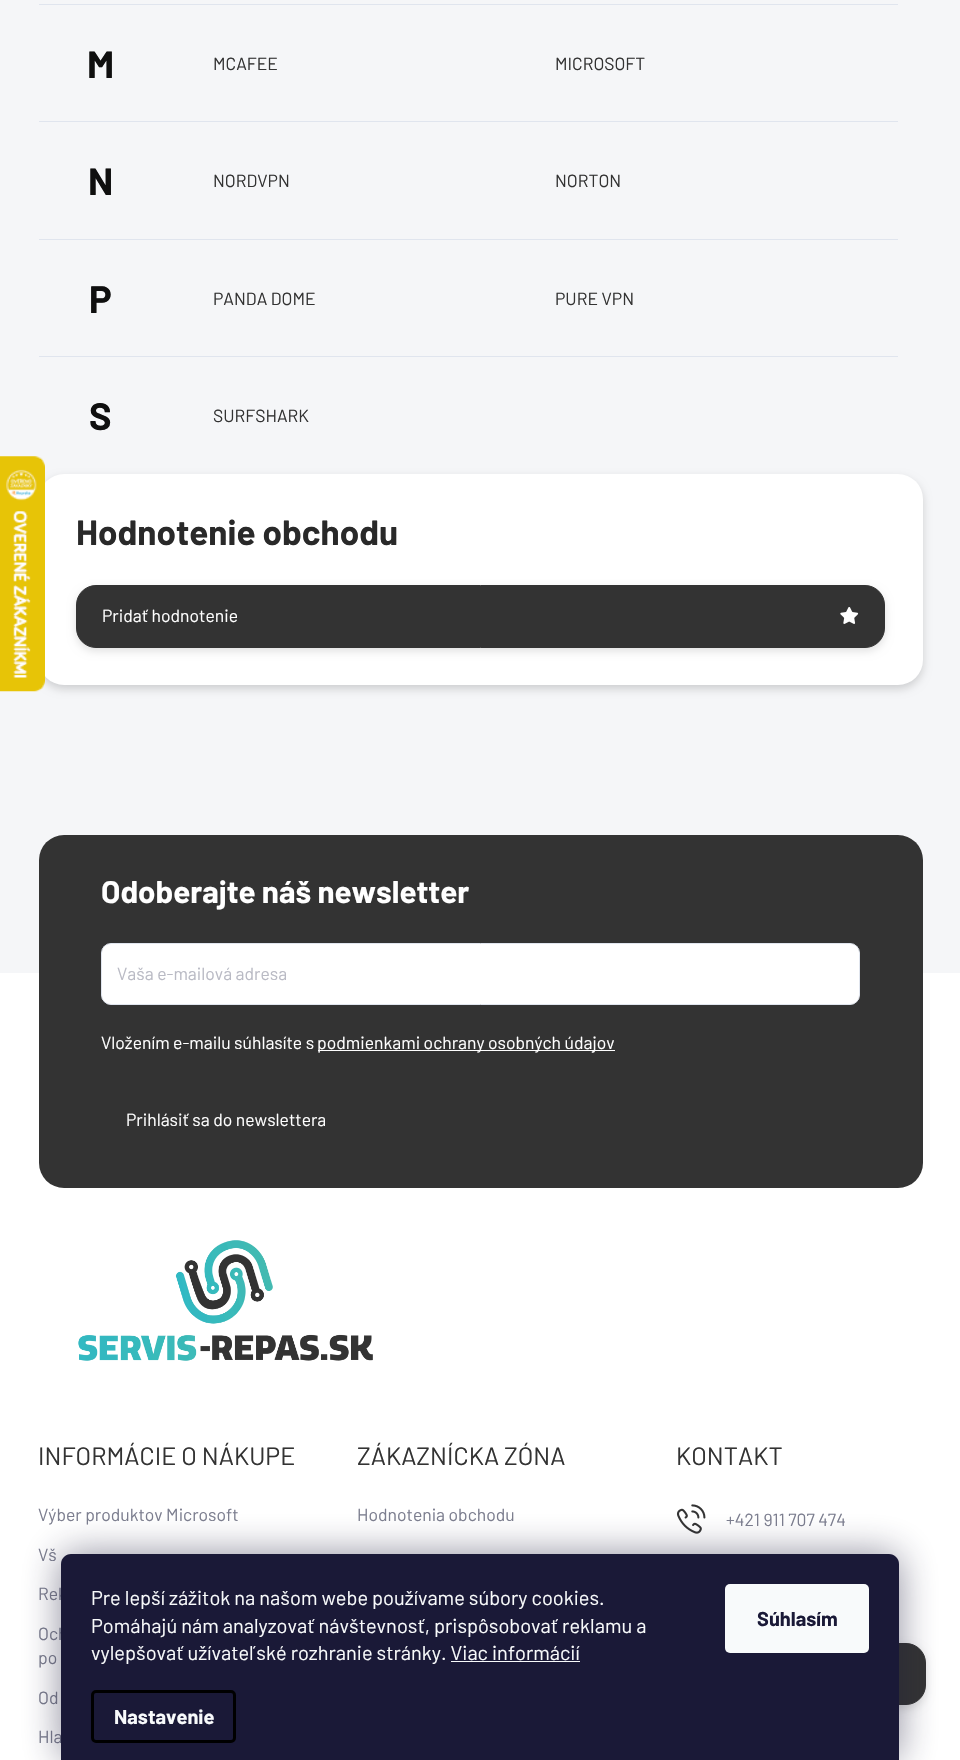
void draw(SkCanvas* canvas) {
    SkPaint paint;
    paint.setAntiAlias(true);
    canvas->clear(0xFFF5F6F8);
    paint.setColor(0x29000000);
    paint.setMaskFilter(SkMaskFilter::MakeBlur(kNormal_SkBlurStyle, 4));
    canvas->drawRoundRect(SkRect::MakeXYWH(39, 478, 884, 211), 25, 25, paint);
    paint.setMaskFilter(nullptr);
    paint.setColor(0xFFFFFFFF);
    canvas->drawRoundRect(SkRect::MakeXYWH(39, 474, 884, 211), 25, 25, paint);
    canvas->drawImageRect(SkImages::DeferredFromEncodedData(SkData::MakeFromFileName("img1.png")), SkRect::MakeXYWH(0, 456, 45, 236), SkSamplingOptions());
    paint.setColor(0xFFE0E5EE);
    canvas->drawRect(SkRect::MakeXYWH(39, 4, 859, 1), paint);
    canvas->drawRect(SkRect::MakeXYWH(39, 121, 859, 1), paint);
    SkFont font1(fontMgr->matchFamilyStyle("Barlow", SkFontStyle::Bold()), 38);
    font1.setSubpixel(true);
    paint.setColor(0xFF0F0F0F);
    canvas->drawString("M", 87, 78, font1, paint);
    SkFont font2(fontMgr->matchFamilyStyle("Barlow", SkFontStyle::Normal()), 17.5f);
    font2.setSubpixel(true);
    paint.setColor(0xFF333333);
    canvas->drawString("MCAFEE", 213, 70, font2, paint);
    canvas->drawString("MICROSOFT", 555, 70, font2, paint);
    paint.setColor(0xFFE0E5EE);
    canvas->drawRect(SkRect::MakeXYWH(39, 239, 859, 1), paint);
    paint.setColor(0xFF0F0F0F);
    canvas->drawString("N", 88, 195, font1, paint);
    paint.setColor(0xFF333333);
    canvas->drawString("NORDVPN", 213, 187, font2, paint);
    canvas->drawString("NORTON", 555, 187, font2, paint);
    paint.setColor(0xFFE0E5EE);
    canvas->drawRect(SkRect::MakeXYWH(39, 356, 859, 1), paint);
    paint.setColor(0xFF0F0F0F);
    canvas->drawString("P", 89, 313, font1, paint);
    paint.setColor(0xFF333333);
    canvas->drawString("PANDA DOME", 213, 305, font2, paint);
    canvas->drawString("PURE VPN", 555, 305, font2, paint);
    paint.setColor(0xFF0F0F0F);
    canvas->drawString("S", 89, 430, font1, paint);
    paint.setColor(0xFF333333);
    canvas->drawString("SURFSHARK", 213, 422, font2, paint);
    SkFont font3(fontMgr->matchFamilyStyle("Barlow", SkFontStyle::Bold()), 35);
    font3.setSubpixel(true);
    paint.setColor(0xFF292929);
    canvas->drawString("Hodnotenie obchodu", 76, 545, font3, paint);
    paint.setColor(0x1F000000);
    paint.setMaskFilter(SkMaskFilter::MakeBlur(kNormal_SkBlurStyle, 4));
    canvas->drawRoundRect(SkRect::MakeXYWH(76, 589, 809, 62), 20, 20, paint);
    paint.setMaskFilter(nullptr);
    paint.setColor(0xFF333333);
    canvas->drawRoundRect(SkRect::MakeXYWH(76.5f, 585.5f, 808, 62), 19.5f, 19.5f, paint);
    paint.setStyle(SkPaint::kStroke_Style);
    paint.setStrokeWidth(1);
    canvas->drawRoundRect(SkRect::MakeXYWH(76.5f, 585.5f, 808, 62), 19.5f, 19.5f, paint);
    paint.setStyle(SkPaint::kFill_Style);
    paint.setColor(0xFFFFFFFF);
    canvas->drawString("Pridať hodnotenie", 102, 622, font2, paint);
    canvas->drawImageRect(SkImages::DeferredFromEncodedData(SkData::MakeFromFileName("img2.png")), SkRect::MakeXYWH(840, 607, 19, 17), SkSamplingOptions());
    canvas->drawRect(SkRect::MakeXYWH(0, 973, 960, 787), paint);
    paint.setColor(0xFF333333);
    canvas->drawRoundRect(SkRect::MakeXYWH(39, 835, 884, 353), 25, 25, paint);
    SkFont font4(fontMgr->matchFamilyStyle("Barlow", SkFontStyle::Bold()), 31.25f);
    font4.setSubpixel(true);
    paint.setColor(0xFFFFFFFF);
    canvas->drawString("Odoberajte náš newsletter", 101, 903, font4, paint);
    canvas->drawRoundRect(SkRect::MakeXYWH(101.5f, 943.5f, 758, 61), 9.5f, 9.5f, paint);
    paint.setStyle(SkPaint::kStroke_Style);
    paint.setColor(0xFFE0E5EE);
    canvas->drawRoundRect(SkRect::MakeXYWH(101.5f, 943.5f, 758, 61), 9.5f, 9.5f, paint);
    paint.setStyle(SkPaint::kFill_Style);
    paint.setColor(0xFFB9BAC4);
    canvas->drawString("Vaša e-mailová adresa", 117, 980, font2, paint);
    paint.setColor(0xFFFFFFFF);
    canvas->drawString("Vložením e-mailu súhlasíte s", 101, 1049, font2, paint);
    canvas->drawRect(SkRect::MakeXYWH(318, 1050, 297, 1), paint);
    canvas->drawString("podmienkami ochrany osobných údajov", 317, 1049, font2, paint);
    canvas->drawString("Prihlásiť sa do newslettera", 126, 1126, font2, paint);
    canvas->drawImageRect(SkImages::DeferredFromEncodedData(SkData::MakeFromFileName("img3.png")), SkRect::MakeXYWH(78, 1240, 295, 121), SkSamplingOptions());
    SkFont font5(fontMgr->matchFamilyStyle("Barlow", SkFontStyle::Normal()), 25);
    font5.setSubpixel(true);
    paint.setColor(0xFF333333);
    canvas->drawString("INFORMÁCIE O NÁKUPE", 38, 1465, font5, paint);
    paint.setColor(0xFF7C7E8F);
    canvas->drawString("Výber produktov Microsoft", 38, 1521, font2, paint);
    canvas->drawString("Vš", 38, 1561, font2, paint);
    canvas->drawString("Rek", 38, 1600, font2, paint);
    canvas->drawString("Och", 38, 1640, font2, paint);
    canvas->drawString("po", 38, 1664, font2, paint);
    canvas->drawString("Od", 38, 1704, font2, paint);
    canvas->drawString("Hla", 38, 1743, font2, paint);
    paint.setColor(0xFF333333);
    canvas->drawString("ZÁKAZNÍCKA ZÓNA", 357, 1465, font5, paint);
    paint.setColor(0xFF7C7E8F);
    canvas->drawString("Hodnotenia obchodu", 357, 1521, font2, paint);
    paint.setColor(0xFF333333);
    canvas->drawString("KONTAKT", 676, 1465, font5, paint);
    canvas->drawImageRect(SkImages::DeferredFromEncodedData(SkData::MakeFromFileName("img4.png")), SkRect::MakeXYWH(676, 1504, 30, 30), SkSamplingOptions());
    paint.setColor(0xFF7C7E8F);
    canvas->drawString("+421 911 707 474", 726, 1526, font2, paint);
    paint.setColor(0x1F000000);
    paint.setMaskFilter(SkMaskFilter::MakeBlur(kNormal_SkBlurStyle, 4));
    canvas->drawRoundRect(SkRect::MakeXYWH(676, 1646, 250, 63), 20, 20, paint);
    paint.setMaskFilter(nullptr);
    paint.setColor(0xFF333333);
    canvas->drawRoundRect(SkRect::MakeXYWH(676.5f, 1643.5f, 249, 61), 19.5f, 19.5f, paint);
    paint.setStyle(SkPaint::kStroke_Style);
    canvas->drawRoundRect(SkRect::MakeXYWH(676.5f, 1643.5f, 249, 61), 19.5f, 19.5f, paint);
    paint.setStyle(SkPaint::kFill_Style);
    paint.setColor(0x801B1939);
    paint.setMaskFilter(SkMaskFilter::MakeBlur(kNormal_SkBlurStyle, 19));
    canvas->drawRoundRect(SkRect::MakeXYWH(61, 1554, 838, 206), 10, 10, paint);
    paint.setMaskFilter(nullptr);
    paint.setColor(0xFF1A1937);
    canvas->drawPath(SkPathBuilder().moveTo(71, 1554).lineTo(889, 1554).cubicTo(894.5f, 1554, 899, 1558.5f, 899, 1564).lineTo(899, 1760).lineTo(61, 1760).lineTo(61, 1564).cubicTo(61, 1558.5f, 65.5f, 1554, 71, 1554).close().detach(), paint);
    SkFont font6(fontMgr->matchFamilyStyle("Barlow", SkFontStyle::Normal()), 20);
    font6.setSubpixel(true);
    paint.setColor(0xFFF8FAFB);
    canvas->drawString("Pre lepší zážitok na našom webe používame súbory cookies.", 91, 1605, font6, paint);
    canvas->drawString("Pomáhajú nám analyzovať návštevnosť, prispôsobovať reklamu a", 91, 1633, font6, paint);
    canvas->drawString("vylepšovať užívateľské rozhranie stránky. Viac informácií", 91, 1660, font6, paint);
    canvas->drawRect(SkRect::MakeXYWH(451, 1661, 129, 1), paint);
    paint.setStyle(SkPaint::kStroke_Style);
    paint.setStrokeWidth(3);
    paint.setColor(0xFF000000);
    canvas->drawRoundRect(SkRect::MakeXYWH(92.5f, 1691.5f, 142, 50), 3.5f, 3.5f, paint);
    SkFont font7(fontMgr->matchFamilyStyle("Barlow", SkFontStyle::Bold()), 20);
    font7.setSubpixel(true);
    paint.setStyle(SkPaint::kFill_Style);
    paint.setColor(0xFFF8FAFB);
    canvas->drawString("Nastavenie", 114, 1724, font7, paint);
    canvas->drawRoundRect(SkRect::MakeXYWH(725, 1584, 144, 69), 5, 5, paint);
    paint.setColor(0xFF1A1937);
    canvas->drawString("Súhlasím", 757, 1626, font7, paint);
}
